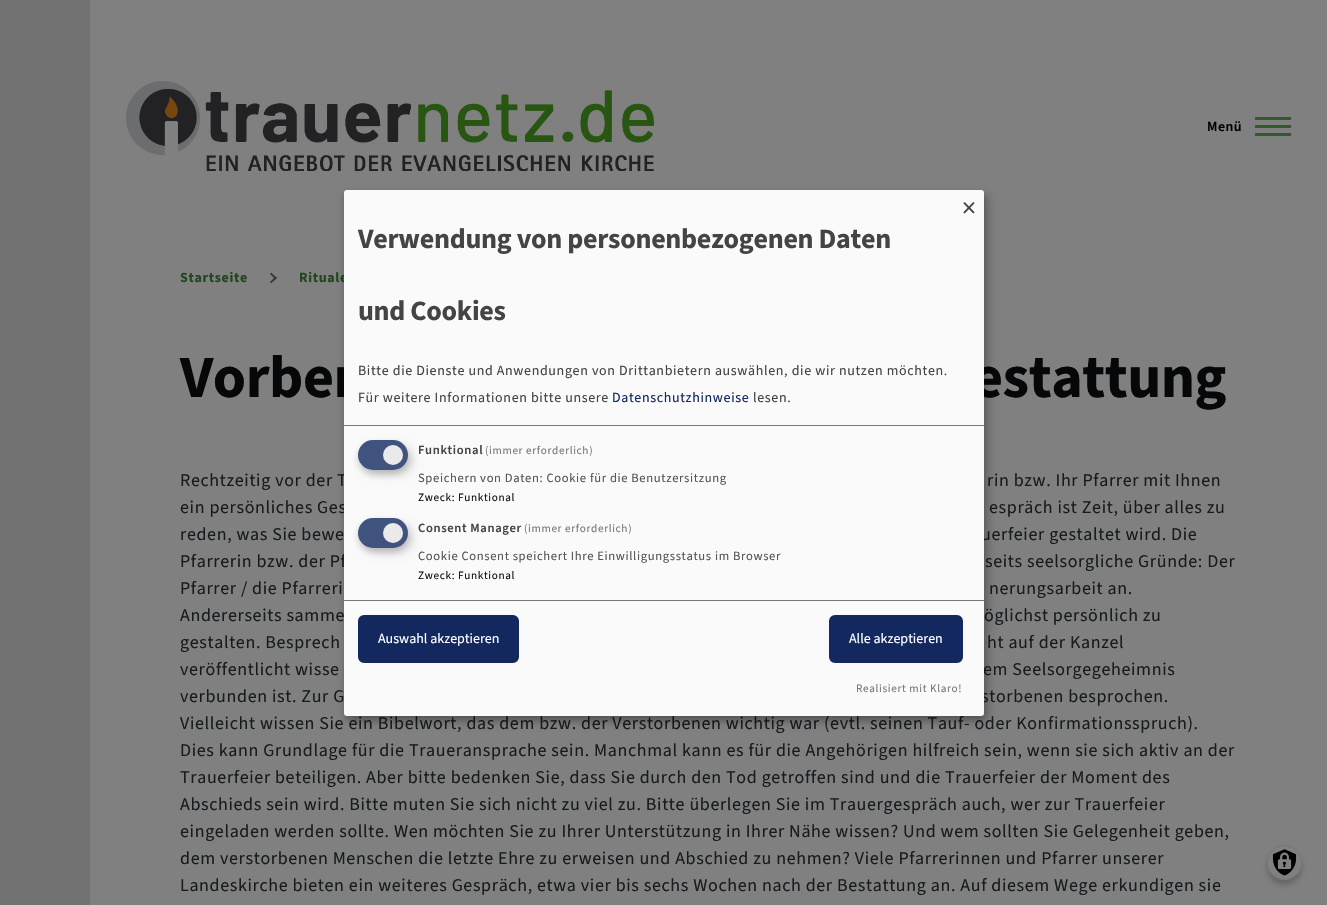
void draw(SkCanvas* canvas) {
    SkPaint paint;
    paint.setAntiAlias(true);
    auto spacedText = [&](const char* s, float x, float y, const SkFont& font, const SkPaint& ink, float letter, float word) {
        std::vector<SkGlyphID> glyphs(font.countText(s, strlen(s), SkTextEncoding::kUTF8));
        std::vector<float> xs(glyphs.size());
        font.textToGlyphs(s, strlen(s), SkTextEncoding::kUTF8, glyphs);
        font.getXPos(glyphs, xs, x);
        float extra = 0;
        for (size_t i = 0; i < glyphs.size(); i++) {
            xs[i] += extra;
            extra += letter + word * (glyphs[i] == font.unicharToGlyph(' '));
        }
        canvas->drawTextBlob(SkTextBlob::MakeFromPosHGlyphs(glyphs, xs, y, font), 0, 0, ink);
    };
    canvas->clear(0xFF808080);
    canvas->drawImageRect(SkImages::DeferredFromEncodedData(SkData::MakeFromFileName("img1.png")), SkRect::MakeXYWH(126, 81, 528, 90), SkSamplingOptions());
    SkFont font1(fontMgr->matchFamilyStyle("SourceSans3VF", SkFontStyle(600, SkFontStyle::kNormal_Width, SkFontStyle::kUpright_Slant)), 14);
    font1.setSubpixel(true);
    paint.setColor(0xFF000000);
    spacedText("Menü", 1207, 131, font1, paint, 0.5f, 0);
    paint.setColor(0xFF305B2D);
    canvas->drawRect(SkRect::MakeXYWH(1255, 125, 36, 3), paint);
    canvas->drawRect(SkRect::MakeXYWH(1255, 117, 36, 3), paint);
    canvas->drawRect(SkRect::MakeXYWH(1255, 133, 36, 3), paint);
    paint.setColor(0xFF727272);
    canvas->drawRect(SkRect::MakeXYWH(0, 0, 90, 905), paint);
    SkFont font2(fontMgr->matchFamilyStyle("SourceSans3VF", SkFontStyle::Bold()), 14);
    font2.setSubpixel(true);
    paint.setColor(0xFF234720);
    spacedText("Startseite", 180, 282, font2, paint, 0.64f, 0);
    paint.setColor(0xFF303B41);
    canvas->drawPath(SkPathBuilder().moveTo(271, 272.5f).lineTo(277, 278).lineTo(275.5f, 279.5f).lineTo(270, 274).close().detach(), paint);
    canvas->drawPath(SkPathBuilder().moveTo(275.5f, 276.5f).lineTo(277, 278).lineTo(271, 283.5f).lineTo(270, 282).close().detach(), paint);
    paint.setColor(0xFF234720);
    spacedText("Rituale", 299, 282, font2, paint, 0.64f, 0);
    SkFont font3(fontMgr->matchFamilyStyle("SourceSans3VF", SkFontStyle::Bold()), 60);
    font3.setSubpixel(true);
    paint.setColor(0xFF060708);
    spacedText("Vorber", 180, 397, font3, paint, -0.5f, 0);
    spacedText("estattung", 972, 397, font3, paint, -0.5f, 0);
    SkFont font4(fontMgr->matchFamilyStyle("SourceSans3VF", SkFontStyle::Normal()), 18);
    font4.setSubpixel(true);
    paint.setColor(0xFF161B1E);
    spacedText("Rechtzeitig vor der T", 180, 486, font4, paint, 0.64f, 0);
    spacedText("rin bzw. Ihr Pfarrer mit Ihnen", 987, 486, font4, paint, 0.64f, 0);
    spacedText("ein persönliches Ges", 180, 513, font4, paint, 0.64f, 0);
    spacedText("espräch ist Zeit, über alles zu", 989, 513, font4, paint, 0.64f, 0);
    spacedText("reden, was Sie bewe", 180, 540, font4, paint, 0.64f, 0);
    spacedText("uerfeier gestaltet wird. Die", 981, 540, font4, paint, 0.64f, 0);
    spacedText("Pfarrerin bzw. der Pf", 180, 567, font4, paint, 0.64f, 0);
    spacedText("seits seelsorgliche Gründe: Der", 985, 567, font4, paint, 0.64f, 0);
    spacedText("Pfarrer / die Pfarreri", 180, 594, font4, paint, 0.64f, 0);
    spacedText("nerungsarbeit an.", 989, 594, font4, paint, 0.64f, 0);
    spacedText("Andererseits samme", 180, 621, font4, paint, 0.64f, 0);
    spacedText("öglichst persönlich zu", 984, 621, font4, paint, 0.64f, 0);
    spacedText("gestalten. Besprech", 180, 648, font4, paint, 0.64f, 0);
    spacedText("ht auf der Kanzel", 987, 648, font4, paint, 0.64f, 0);
    spacedText("veröffentlicht wisse", 180, 675, font4, paint, 0.64f, 0);
    spacedText("em Seelsorgegeheimnis", 983, 675, font4, paint, 0.64f, 0);
    spacedText("verbunden ist. Zur G", 180, 702, font4, paint, 0.64f, 0);
    spacedText("storbenen besprochen.", 981, 702, font4, paint, 0.64f, 0);
    spacedText("Vielleicht wissen Sie ein Bibelwort, das dem bzw. der Verstorbenen wichtig war (evtl. seinen Tauf- oder Konfirmationsspruch).", 180, 729, font4, paint, 0.64f, 0);
    spacedText("Dies kann Grundlage für die Traueransprache sein. Manchmal kann es für die Angehörigen hilfreich sein, wenn sie sich aktiv an der", 180, 756, font4, paint, 0.64f, 0);
    spacedText("Trauerfeier beteiligen. Aber bitte bedenken Sie, dass Sie durch den Tod getroffen sind und die Trauerfeier der Moment des", 180, 783, font4, paint, 0.64f, 0);
    spacedText("Abschieds sein wird. Bitte muten Sie sich nicht zu viel zu. Bitte überlegen Sie im Trauergespräch auch, wer zur Trauerfeier", 180, 810, font4, paint, 0.64f, 0);
    spacedText("eingeladen werden sollte. Wen möchten Sie zu Ihrer Unterstützung in Ihrer Nähe wissen? Und wem sollten Sie Gelegenheit geben,", 180, 837, font4, paint, 0.64f, 0);
    spacedText("dem verstorbenen Menschen die letzte Ehre zu erweisen und Abschied zu nehmen? Viele Pfarrerinnen und Pfarrer unserer", 180, 864, font4, paint, 0.64f, 0);
    spacedText("Landeskirche bieten ein weiteres Gespräch, etwa vier bis sechs Wochen nach der Bestattung an. Auf diesem Wege erkundigen sie", 180, 891, font4, paint, 0.64f, 0);
    paint.setColor(0x30000000);
    paint.setMaskFilter(SkMaskFilter::MakeBlur(kNormal_SkBlurStyle, 5));
    canvas->drawRoundRect(SkRect::MakeXYWH(349, 195, 640, 526), 3, 3, paint);
    paint.setMaskFilter(nullptr);
    paint.setColor(0x33000000);
    paint.setMaskFilter(SkMaskFilter::MakeBlur(kNormal_SkBlurStyle, 3));
    canvas->drawRoundRect(SkRect::MakeXYWH(344, 194, 640, 526), 3, 3, paint);
    paint.setMaskFilter(nullptr);
    paint.setColor(0xFFFAFAFA);
    canvas->drawRoundRect(SkRect::MakeXYWH(344, 190, 640, 526), 3, 3, paint);
    SkFont font5(fontMgr->matchFamilyStyle("SourceSans3VF", SkFontStyle::Normal()), 28);
    font5.setSubpixel(true);
    paint.setColor(0xFF444444);
    canvas->drawString("×", 962, 217, font5, paint);
    paint.setColor(0xFF777777);
    canvas->drawRect(SkRect::MakeXYWH(344, 425, 640, 1), paint);
    SkFont font6(fontMgr->matchFamilyStyle("SourceSans3VF", SkFontStyle::Bold()), 28);
    font6.setSubpixel(true);
    paint.setColor(0xFF444444);
    spacedText("Verwendung von personenbezogenen Daten", 358, 248, font6, paint, -0.3f, 0);
    spacedText("und Cookies", 358, 320, font6, paint, -0.3f, 0);
    SkFont font7(fontMgr->matchFamilyStyle("SourceSans3VF", SkFontStyle::Normal()), 14);
    font7.setSubpixel(true);
    spacedText("Bitte die Dienste und Anwendungen von Drittanbietern auswählen, die wir nutzen möchten.", 358, 375, font7, paint, 0.64f, 0);
    spacedText("Für weitere Informationen bitte unsere", 358, 402, font7, paint, 0.64f, 0);
    paint.setColor(0xFF12285F);
    spacedText("Datenschutzhinweise", 612, 402, font7, paint, 0.64f, 0);
    paint.setColor(0xFF444444);
    spacedText("lesen.", 753, 402, font7, paint, 0.64f, 0);
    paint.setColor(0x26000000);
    paint.setMaskFilter(SkMaskFilter::MakeBlur(kNormal_SkBlurStyle, 5));
    canvas->drawRoundRect(SkRect::MakeXYWH(363, 445, 50, 30), 15, 15, paint);
    paint.setMaskFilter(nullptr);
    paint.setColor(0x33323232);
    paint.setMaskFilter(SkMaskFilter::MakeBlur(kNormal_SkBlurStyle, 3));
    canvas->drawRoundRect(SkRect::MakeXYWH(358, 444, 50, 30), 15, 15, paint);
    paint.setMaskFilter(nullptr);
    paint.setColor(0xFF40527E);
    canvas->drawRoundRect(SkRect::MakeXYWH(358, 440, 50, 30), 15, 15, paint);
    paint.setColor(0xFFEAEAEA);
    canvas->drawCircle(393, 455, 10, paint);
    SkFont font8(fontMgr->matchFamilyStyle("SourceSans3VF", SkFontStyle(600, SkFontStyle::kNormal_Width, SkFontStyle::kUpright_Slant)), 12.6f);
    font8.setSubpixel(true);
    paint.setColor(0xFF444444);
    spacedText("Funktional", 418, 454, font8, paint, 0.64f, 0);
    SkFont font9(fontMgr->matchFamilyStyle("SourceSans3VF", SkFontStyle::Normal()), 11.25f);
    font9.setSubpixel(true);
    paint.setColor(0xFF777777);
    spacedText("(immer erforderlich)", 485, 454, font9, paint, 0.64f, 0);
    SkFont font10(fontMgr->matchFamilyStyle("SourceSans3VF", SkFontStyle::Normal()), 12.6f);
    font10.setSubpixel(true);
    paint.setColor(0xFF555555);
    spacedText("Speichern von Daten: Cookie für die Benutzersitzung", 418, 482, font10, paint, 0.64f, 0);
    paint.setColor(0xFF111111);
    spacedText("Zweck: Funktional", 418, 501, font9, paint, 0.64f, 0);
    paint.setColor(0x26000000);
    paint.setMaskFilter(SkMaskFilter::MakeBlur(kNormal_SkBlurStyle, 5));
    canvas->drawRoundRect(SkRect::MakeXYWH(363, 523, 50, 30), 15, 15, paint);
    paint.setMaskFilter(nullptr);
    paint.setColor(0x33323232);
    paint.setMaskFilter(SkMaskFilter::MakeBlur(kNormal_SkBlurStyle, 3));
    canvas->drawRoundRect(SkRect::MakeXYWH(358, 522, 50, 30), 15, 15, paint);
    paint.setMaskFilter(nullptr);
    paint.setColor(0xFF40527E);
    canvas->drawRoundRect(SkRect::MakeXYWH(358, 518, 50, 30), 15, 15, paint);
    paint.setColor(0xFFEAEAEA);
    canvas->drawCircle(393, 533, 10, paint);
    paint.setColor(0xFF444444);
    spacedText("Consent Manager", 418, 532, font8, paint, 0.64f, 0);
    paint.setColor(0xFF777777);
    spacedText("(immer erforderlich)", 524, 532, font9, paint, 0.64f, 0);
    paint.setColor(0xFF555555);
    spacedText("Cookie Consent speichert Ihre Einwilligungsstatus im Browser", 418, 560, font10, paint, 0.64f, 0);
    paint.setColor(0xFF111111);
    spacedText("Zweck: Funktional", 418, 579, font9, paint, 0.64f, 0);
    paint.setColor(0xFF777777);
    canvas->drawRect(SkRect::MakeXYWH(344, 600, 640, 1), paint);
    paint.setColor(0xFF12285F);
    canvas->drawRoundRect(SkRect::MakeXYWH(359.5f, 616.5f, 158, 45), 4.5f, 4.5f, paint);
    paint.setStyle(SkPaint::kStroke_Style);
    paint.setStrokeWidth(3);
    canvas->drawRoundRect(SkRect::MakeXYWH(359.5f, 616.5f, 158, 45), 4.5f, 4.5f, paint);
    paint.setStyle(SkPaint::kFill_Style);
    paint.setColor(0xFFFFFFFF);
    canvas->drawString("Auswahl akzeptieren", 378, 643, font7, paint);
    paint.setColor(0xFF12285F);
    canvas->drawRoundRect(SkRect::MakeXYWH(830.5f, 616.5f, 131, 45), 4.5f, 4.5f, paint);
    paint.setStyle(SkPaint::kStroke_Style);
    canvas->drawRoundRect(SkRect::MakeXYWH(830.5f, 616.5f, 131, 45), 4.5f, 4.5f, paint);
    paint.setStyle(SkPaint::kFill_Style);
    paint.setColor(0xFFFFFFFF);
    canvas->drawString("Alle akzeptieren", 849, 643, font7, paint);
    paint.setColor(0xFF777777);
    spacedText("Realisiert mit Klaro!", 856, 692, font9, paint, 0.64f, 0);
    paint.setColor(0x33000000);
    paint.setMaskFilter(SkMaskFilter::MakeBlur(kNormal_SkBlurStyle, 2.5f));
    canvas->drawRoundRect(SkRect::MakeXYWH(1267, 850, 35, 35), 17.5f, 17.5f, paint);
    paint.setMaskFilter(nullptr);
    paint.setColor(0xFF808080);
    canvas->drawCircle(1284.5f, 862.5f, 17.5f, paint);
    canvas->drawImageRect(SkImages::DeferredFromEncodedData(SkData::MakeFromFileName("img2.png")), SkRect::MakeXYWH(1272, 849, 25, 27), SkSamplingOptions());
    paint.setStyle(SkPaint::kStroke_Style);
    paint.setStrokeWidth(1);
    paint.setColor(0xFF757575);
    canvas->drawCircle(1284.5f, 862.5f, 17, paint);
}
